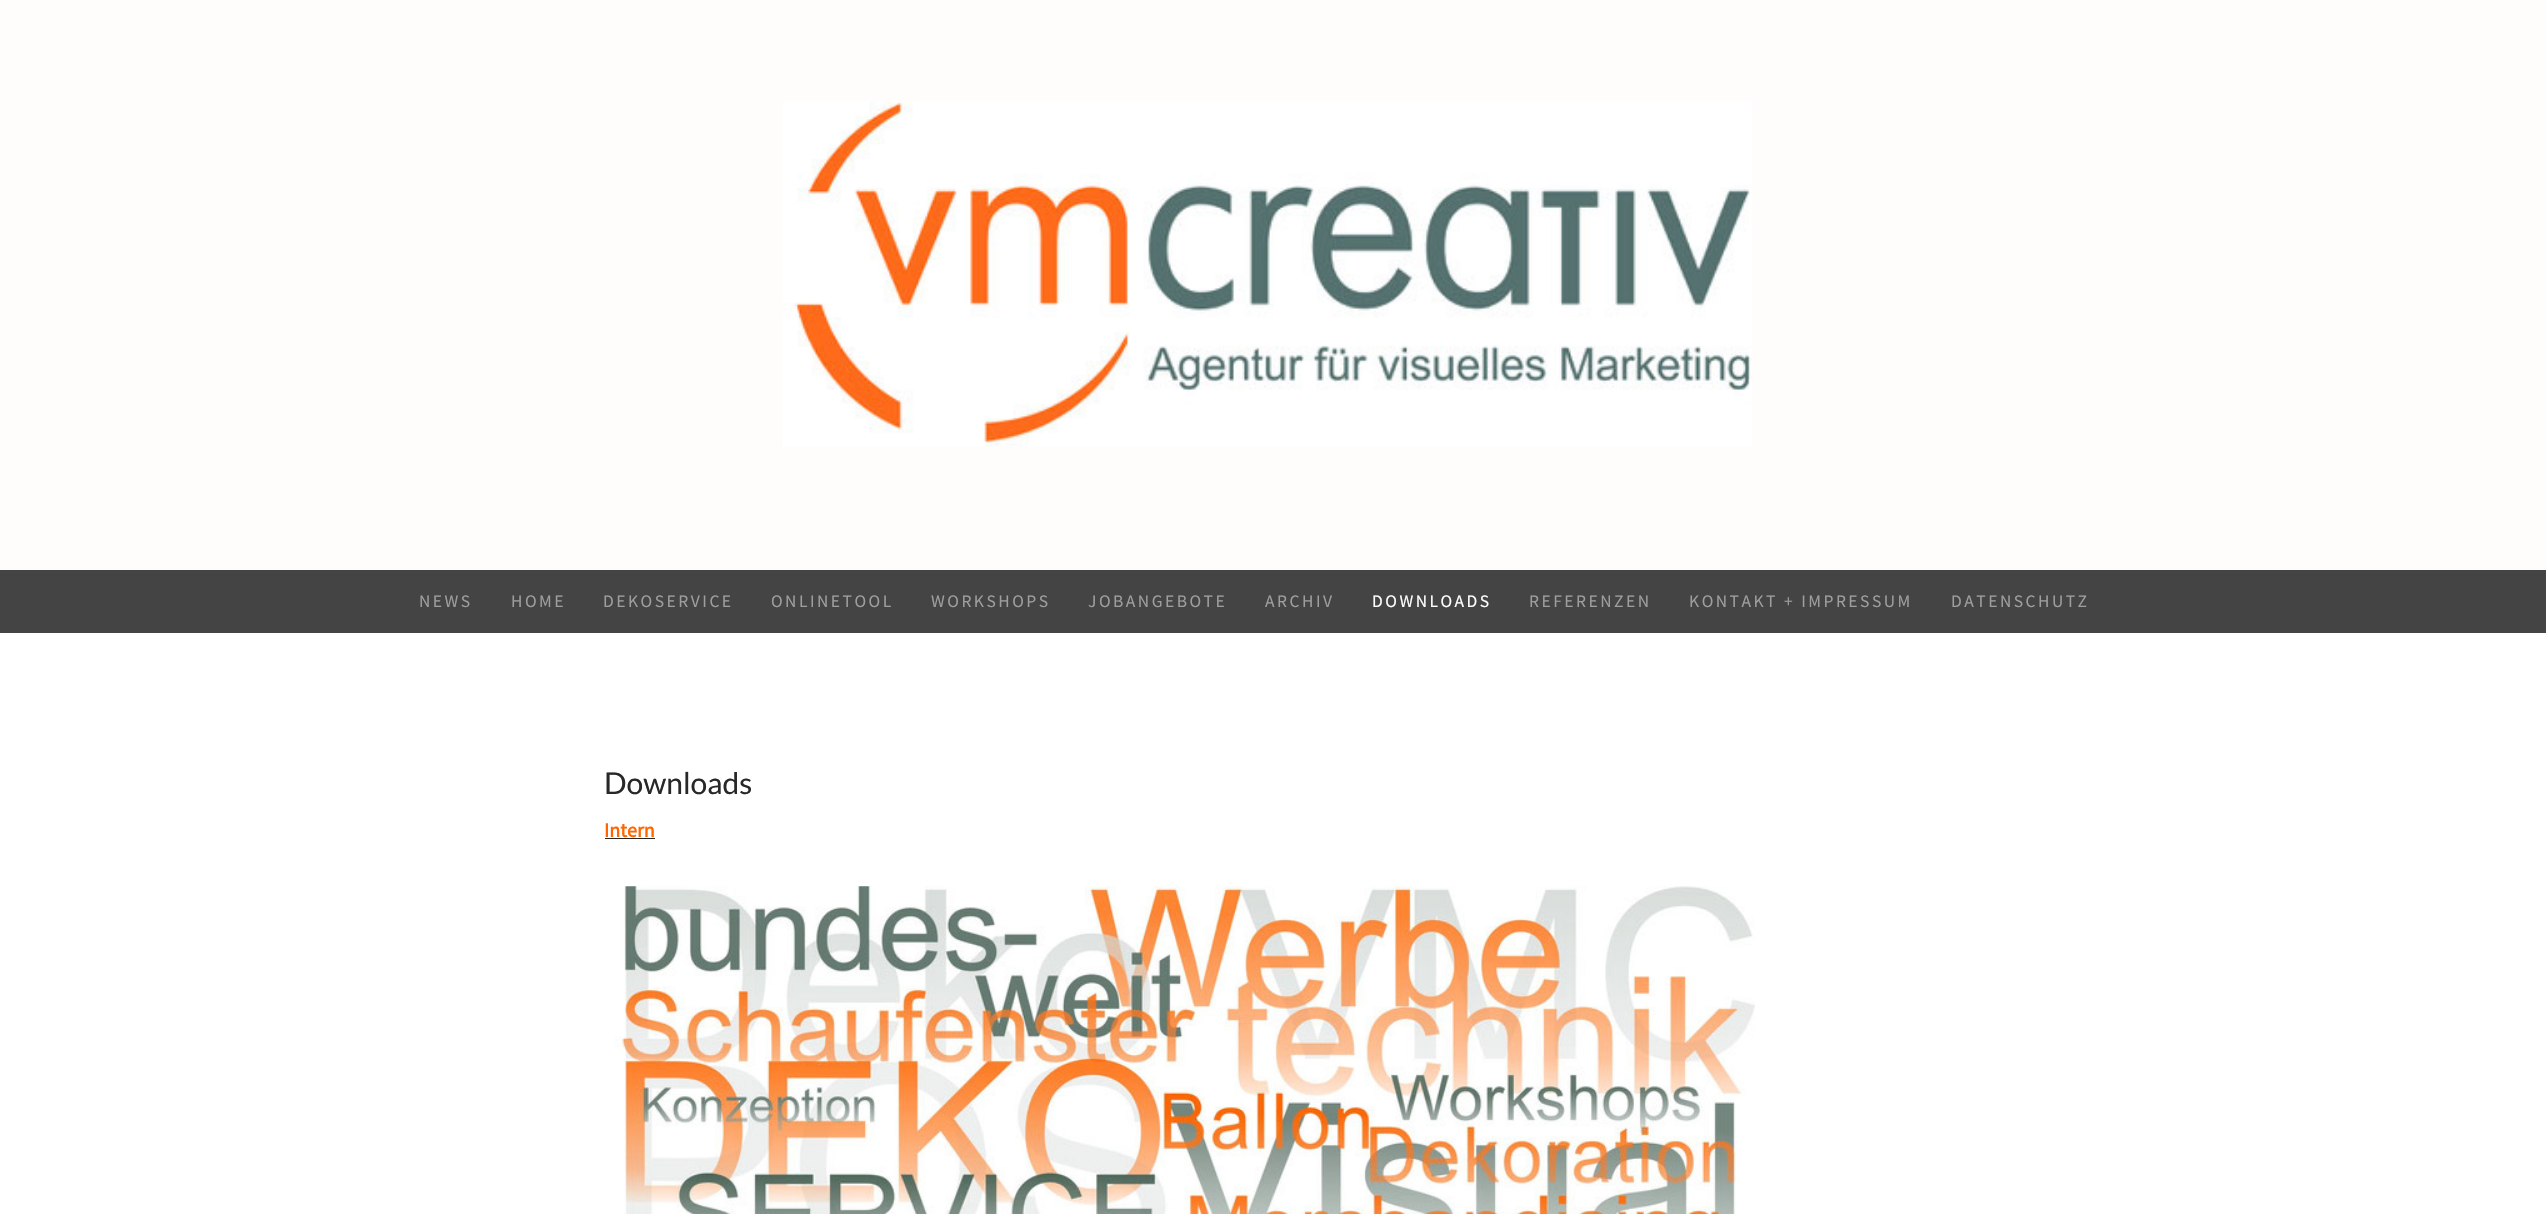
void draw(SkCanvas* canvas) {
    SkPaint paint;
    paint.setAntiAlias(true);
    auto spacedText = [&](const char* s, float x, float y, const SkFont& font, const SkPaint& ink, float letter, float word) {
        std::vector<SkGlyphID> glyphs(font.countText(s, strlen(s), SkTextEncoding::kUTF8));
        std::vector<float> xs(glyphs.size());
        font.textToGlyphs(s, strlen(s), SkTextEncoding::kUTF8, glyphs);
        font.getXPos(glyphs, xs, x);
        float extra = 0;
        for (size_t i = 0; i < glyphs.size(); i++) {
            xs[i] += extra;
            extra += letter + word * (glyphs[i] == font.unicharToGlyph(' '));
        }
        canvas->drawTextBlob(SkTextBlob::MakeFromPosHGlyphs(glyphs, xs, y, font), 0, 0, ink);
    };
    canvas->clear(0xFFFFFFFF);
    paint.setColor(0xFFFFFCFC);
    canvas->drawRect(SkRect::MakeXYWH(0, 0, 2546, 570), paint);
    canvas->drawImageRect(SkImages::DeferredFromEncodedData(SkData::MakeFromFileName("img1.png")), SkRect::MakeXYWH(783, 101, 969, 346), SkSamplingOptions());
    paint.setColor(0xFF444444);
    canvas->drawRect(SkRect::MakeXYWH(0, 570, 2546, 63), paint);
    SkFont font1(fontMgr->matchFamilyStyle("Source Sans Pro", SkFontStyle::Normal()), 17.5f);
    font1.setSubpixel(true);
    paint.setColor(0xFF9D9E9E);
    spacedText("NEWS", 419, 607, font1, paint, 2.5f, 0);
    spacedText("HOME", 511, 607, font1, paint, 2.5f, 0);
    spacedText("DEKOSERVICE", 603, 607, font1, paint, 2.5f, 0);
    spacedText("ONLINETOOL", 771, 607, font1, paint, 2.5f, 0);
    spacedText("WORKSHOPS", 931, 607, font1, paint, 2.5f, 0);
    spacedText("JOBANGEBOTE", 1088, 607, font1, paint, 2.5f, 0);
    spacedText("ARCHIV", 1265, 607, font1, paint, 2.5f, 0);
    paint.setColor(0xFFFFFFFF);
    spacedText("DOWNLOADS", 1372, 607, font1, paint, 2.5f, 0);
    paint.setColor(0xFF9D9E9E);
    spacedText("REFERENZEN", 1529, 607, font1, paint, 2.5f, 0);
    spacedText("KONTAKT + IMPRESSUM", 1689, 607, font1, paint, 2.5f, 0);
    spacedText("DATENSCHUTZ", 1951, 607, font1, paint, 2.5f, 0);
    SkFont font2(fontMgr->matchFamilyStyle("Lato", SkFontStyle::Normal()), 30);
    font2.setSubpixel(true);
    paint.setColor(0xFF282828);
    canvas->drawString("Downloads", 604, 794, font2, paint);
    SkFont font3(fontMgr->matchFamilyStyle("Source Sans Pro", SkFontStyle::Bold()), 20);
    font3.setSubpixel(true);
    paint.setColor(0xFFFF6600);
    canvas->drawString("Intern", 604, 837, font3, paint);
    paint.setColor(0xFF282828);
    canvas->drawRect(SkRect::MakeXYWH(605, 838, 50, 1), paint);
    canvas->drawImageRect(SkImages::DeferredFromEncodedData(SkData::MakeFromFileName("img2.png")), SkRect::MakeXYWH(615, 886, 1140, 328), SkSamplingOptions());
}
